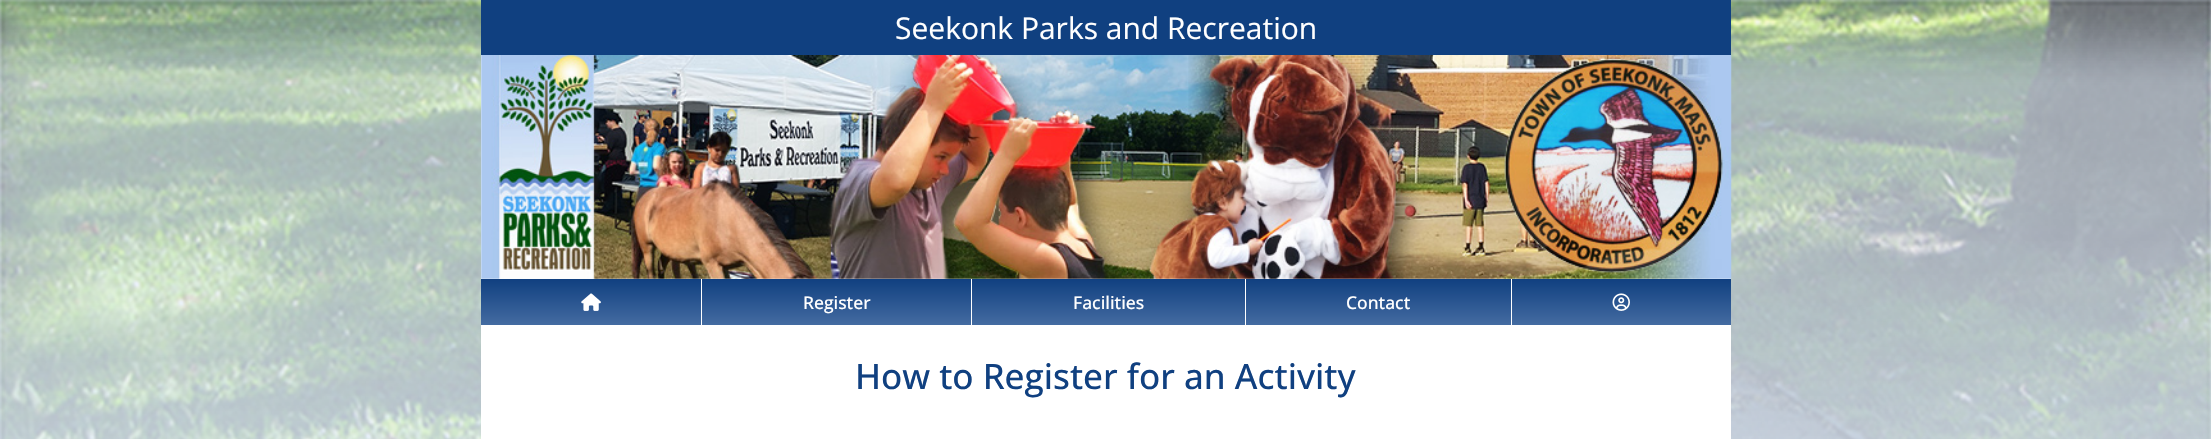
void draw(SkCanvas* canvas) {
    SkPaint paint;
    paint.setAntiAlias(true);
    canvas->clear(0xFFE4EEFD);
    canvas->drawImageRect(SkImages::DeferredFromEncodedData(SkData::MakeFromFileName("img1.png")), SkRect::MakeXYWH(0, 0, 2211, 439), SkSamplingOptions());
    paint.setColor(0xFFFFFFFF);
    canvas->drawRect(SkRect::MakeXYWH(481, 55, 1250, 384), paint);
    paint.setColor(0xFF104080);
    canvas->drawRect(SkRect::MakeXYWH(481, 0, 1250, 55), paint);
    SkFont font1(fontMgr->matchFamilyStyle("Open Sans", SkFontStyle::Normal()), 30);
    font1.setSubpixel(true);
    paint.setColor(0xFFFFFFFF);
    canvas->drawString("Seekonk Parks and Recreation", 895, 39, font1, paint);
    canvas->drawImageRect(SkImages::DeferredFromEncodedData(SkData::MakeFromFileName("img2.png")), SkRect::MakeXYWH(481, 55, 1251, 224), SkSamplingOptions());
    {
        const SkColor colors[] = {0xFF104080, 0xFF446BA1};
        const float stops[] = {0, 1};
        const SkPoint ends[] = {{1106, 279}, {1106, 325}};
        paint.setShader(SkGradientShader::MakeLinear(ends, colors, stops, 2, SkTileMode::kClamp));
        paint.setAlpha(255);
    }
    canvas->drawRect(SkRect::MakeXYWH(481, 279, 1250, 46), paint);
    paint.setShader(nullptr);
    paint.setColor(0xFFFFFFFF);
    canvas->drawRect(SkRect::MakeXYWH(701, 279, 1, 46), paint);
    canvas->drawImageRect(SkImages::DeferredFromEncodedData(SkData::MakeFromFileName("img3.png")), SkRect::MakeXYWH(581, 293, 20, 18), SkSamplingOptions());
    canvas->drawRect(SkRect::MakeXYWH(971, 279, 1, 46), paint);
    SkFont font2(fontMgr->matchFamilyStyle("Open Sans", SkFontStyle(500, SkFontStyle::kNormal_Width, SkFontStyle::kUpright_Slant)), 17.5f);
    font2.setSubpixel(true);
    canvas->drawString("Register", 803, 309, font2, paint);
    canvas->drawRect(SkRect::MakeXYWH(1245, 279, 1, 46), paint);
    canvas->drawString("Facilities", 1073, 309, font2, paint);
    canvas->drawRect(SkRect::MakeXYWH(1511, 279, 1, 46), paint);
    canvas->drawString("Contact", 1346, 309, font2, paint);
    canvas->drawImageRect(SkImages::DeferredFromEncodedData(SkData::MakeFromFileName("img4.png")), SkRect::MakeXYWH(1612, 293, 18, 18), SkSamplingOptions());
    SkFont font3(fontMgr->matchFamilyStyle("Open Sans", SkFontStyle(500, SkFontStyle::kNormal_Width, SkFontStyle::kUpright_Slant)), 35);
    font3.setSubpixel(true);
    paint.setColor(0xFF104080);
    canvas->drawString("How to Register for an Activity", 855, 389, font3, paint);
}
